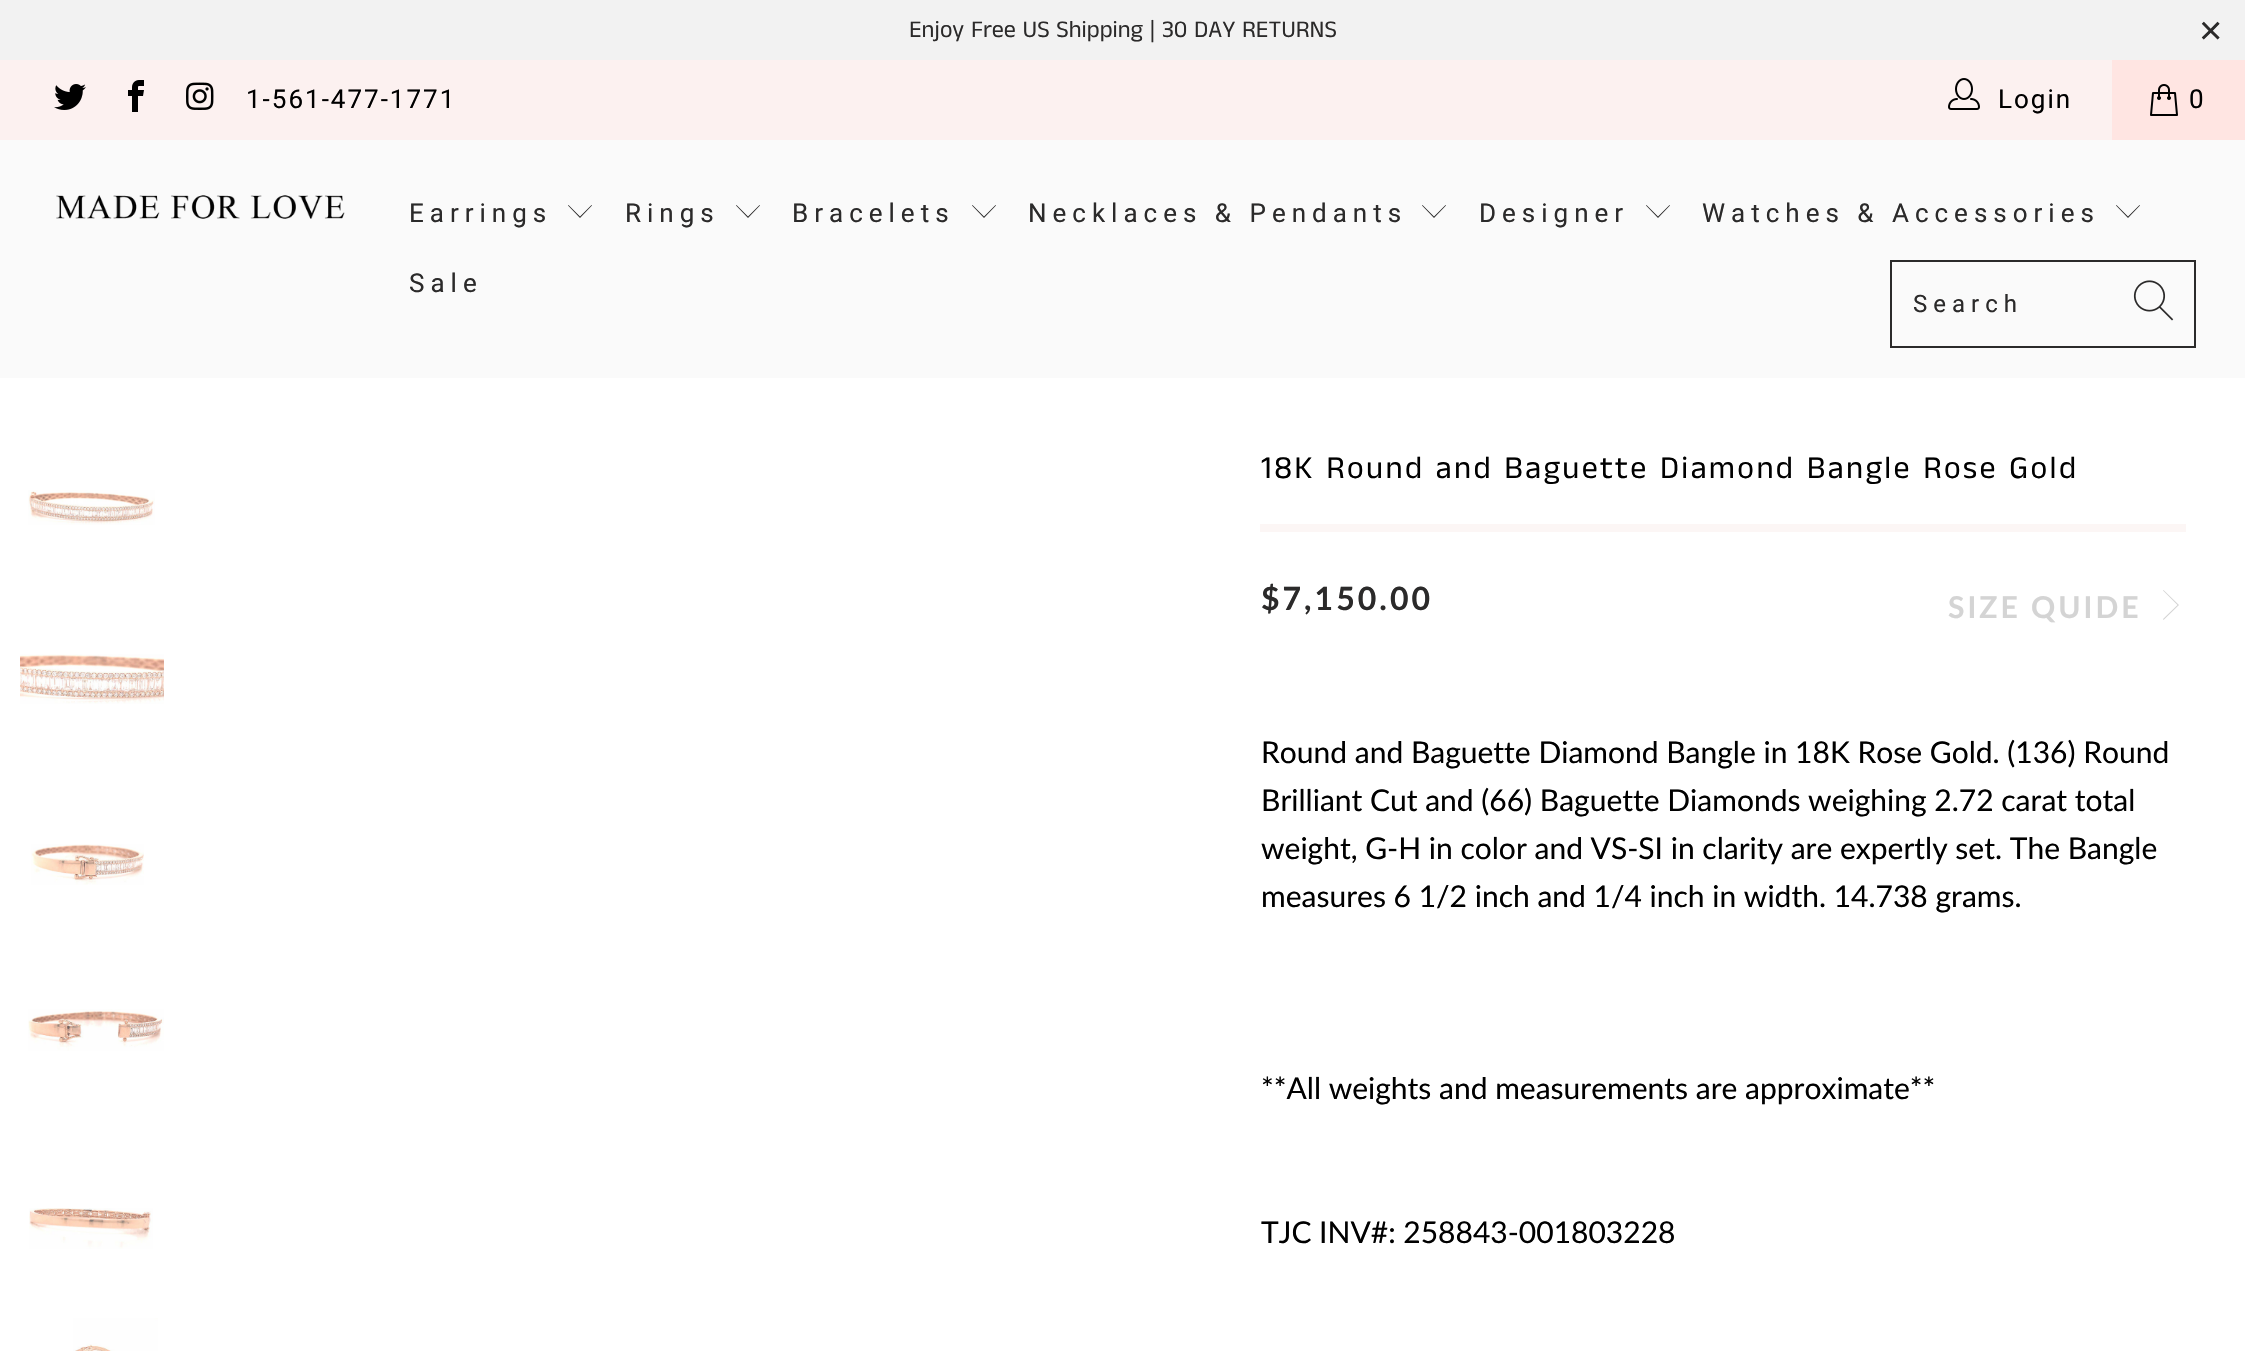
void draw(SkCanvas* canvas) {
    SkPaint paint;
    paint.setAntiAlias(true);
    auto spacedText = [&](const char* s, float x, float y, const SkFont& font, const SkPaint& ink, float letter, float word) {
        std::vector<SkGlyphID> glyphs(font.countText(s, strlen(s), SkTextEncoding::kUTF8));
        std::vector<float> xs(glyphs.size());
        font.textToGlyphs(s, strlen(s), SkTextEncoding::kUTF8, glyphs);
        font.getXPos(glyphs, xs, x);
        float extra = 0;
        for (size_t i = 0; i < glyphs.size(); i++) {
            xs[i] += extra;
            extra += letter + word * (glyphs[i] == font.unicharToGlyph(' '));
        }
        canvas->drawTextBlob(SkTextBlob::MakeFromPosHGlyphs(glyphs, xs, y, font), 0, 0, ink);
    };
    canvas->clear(0xFFFFFFFF);
    paint.setColor(0xFFF2F2F2);
    canvas->drawRect(SkRect::MakeXYWH(0, 0, 2245, 60), paint);
    SkFont font1(fontMgr->matchFamilyStyle("Anek Tamil", SkFontStyle::Normal()), 24);
    font1.setSubpixel(true);
    paint.setColor(0xFF2B2A2A);
    canvas->drawString("Enjoy Free US Shipping | 30 DAY RETURNS", 909, 37, font1, paint);
    SkFont font2(fontMgr->matchFamilyStyle("Liberation Sans", SkFontStyle::Normal()), 40);
    font2.setSubpixel(true);
    canvas->drawString("×", 2199, 44, font2, paint);
    paint.setColor(0xFFFCF1F0);
    canvas->drawRect(SkRect::MakeXYWH(0, 60, 2112, 80), paint);
    canvas->drawImageRect(SkImages::DeferredFromEncodedData(SkData::MakeFromFileName("img1.png")), SkRect::MakeXYWH(54, 84, 32, 26), SkSamplingOptions());
    canvas->drawImageRect(SkImages::DeferredFromEncodedData(SkData::MakeFromFileName("img2.png")), SkRect::MakeXYWH(128, 80, 16, 32), SkSamplingOptions());
    canvas->drawImageRect(SkImages::DeferredFromEncodedData(SkData::MakeFromFileName("img3.png")), SkRect::MakeXYWH(186, 82, 28, 28), SkSamplingOptions());
    SkFont font3(fontMgr->matchFamilyStyle("Roboto", SkFontStyle::Normal()), 26);
    font3.setSubpixel(true);
    paint.setColor(0xFF000000);
    spacedText("1-561-477-1771", 246, 108, font3, paint, 2, 0);
    canvas->drawImageRect(SkImages::DeferredFromEncodedData(SkData::MakeFromFileName("img4.png")), SkRect::MakeXYWH(1948, 78, 32, 32), SkSamplingOptions());
    spacedText("Login", 1998, 108, font3, paint, 2, 0);
    paint.setColor(0xFFFFE5E2);
    canvas->drawRect(SkRect::MakeXYWH(2112, 60, 133, 80), paint);
    canvas->drawImageRect(SkImages::DeferredFromEncodedData(SkData::MakeFromFileName("img5.png")), SkRect::MakeXYWH(2150, 84, 28, 32), SkSamplingOptions());
    paint.setColor(0xFF000000);
    spacedText("0", 2189, 108, font3, paint, 2, 0);
    paint.setColor(0xFFFAFAFA);
    canvas->drawRect(SkRect::MakeXYWH(0, 140, 2245, 238), paint);
    canvas->drawImageRect(SkImages::DeferredFromEncodedData(SkData::MakeFromFileName("img6.png")), SkRect::MakeXYWH(56, 195, 289, 24), SkSamplingOptions());
    paint.setColor(0xFF2B2A2A);
    spacedText("Earrings", 409, 222, font3, paint, 6, 0);
    canvas->drawPath(SkPathBuilder().moveTo(580, 218).lineTo(568, 205.5f).lineTo(568.5f, 205).lineTo(580, 216.5f).lineTo(591.5f, 205).lineTo(592, 205.5f).close().detach(), paint);
    spacedText("Rings", 625, 222, font3, paint, 6, 0);
    canvas->drawPath(SkPathBuilder().moveTo(748, 218).lineTo(736, 205.5f).lineTo(736.5f, 205).lineTo(748, 216.5f).lineTo(759.5f, 205).lineTo(760, 205.5f).close().detach(), paint);
    spacedText("Bracelets", 792, 222, font3, paint, 6, 0);
    canvas->drawPath(SkPathBuilder().moveTo(984, 218).lineTo(972, 205.5f).lineTo(972.5f, 205).lineTo(984, 216.5f).lineTo(995.5f, 205).lineTo(996, 205.5f).close().detach(), paint);
    spacedText("Necklaces & Pendants", 1028, 222, font3, paint, 6, 0);
    canvas->drawPath(SkPathBuilder().moveTo(1434, 218).lineTo(1422, 205.5f).lineTo(1422.5f, 205).lineTo(1434, 216.5f).lineTo(1445.5f, 205).lineTo(1446, 205.5f).close().detach(), paint);
    spacedText("Designer", 1479, 222, font3, paint, 6, 0);
    canvas->drawPath(SkPathBuilder().moveTo(1658, 218).lineTo(1646, 205.5f).lineTo(1646.5f, 205).lineTo(1658, 216.5f).lineTo(1669.5f, 205).lineTo(1670, 205.5f).close().detach(), paint);
    spacedText("Watches & Accessories", 1702, 222, font3, paint, 6, 0);
    canvas->drawPath(SkPathBuilder().moveTo(2128, 218).lineTo(2116, 205.5f).lineTo(2116.5f, 205).lineTo(2128, 216.5f).lineTo(2139.5f, 205).lineTo(2140, 205.5f).close().detach(), paint);
    spacedText("Sale", 409, 292, font3, paint, 6, 0);
    paint.setStyle(SkPaint::kStroke_Style);
    paint.setStrokeWidth(2);
    canvas->drawRect(SkRect::MakeXYWH(1891, 261, 304, 86), paint);
    SkFont font4(fontMgr->matchFamilyStyle("Roboto", SkFontStyle::Normal()), 24);
    font4.setSubpixel(true);
    paint.setStyle(SkPaint::kFill_Style);
    spacedText("Search", 1913, 312, font4, paint, 6, 0);
    canvas->drawImageRect(SkImages::DeferredFromEncodedData(SkData::MakeFromFileName("img7.png")), SkRect::MakeXYWH(2133, 280, 41, 41), SkSamplingOptions());
    canvas->drawImageRect(SkImages::DeferredFromEncodedData(SkData::MakeFromFileName("img8.png")), SkRect::MakeXYWH(28, 490, 127, 35), SkSamplingOptions());
    canvas->drawImageRect(SkImages::DeferredFromEncodedData(SkData::MakeFromFileName("img9.png")), SkRect::MakeXYWH(20, 654, 144, 50), SkSamplingOptions());
    canvas->drawImageRect(SkImages::DeferredFromEncodedData(SkData::MakeFromFileName("img10.png")), SkRect::MakeXYWH(31, 844, 113, 41), SkSamplingOptions());
    canvas->drawImageRect(SkImages::DeferredFromEncodedData(SkData::MakeFromFileName("img11.png")), SkRect::MakeXYWH(28, 1009, 136, 42), SkSamplingOptions());
    canvas->drawImageRect(SkImages::DeferredFromEncodedData(SkData::MakeFromFileName("img12.png")), SkRect::MakeXYWH(29, 1208, 124, 41), SkSamplingOptions());
    canvas->drawImageRect(SkImages::DeferredFromEncodedData(SkData::MakeFromFileName("img13.png")), SkRect::MakeXYWH(73, 1318, 85, 33), SkSamplingOptions());
    SkFont font5(fontMgr->matchFamilyStyle("Anek Tamil", SkFontStyle::Normal()), 32);
    font5.setSubpixel(true);
    paint.setColor(0xFF000000);
    spacedText("18K Round and Baguette Diamond Bangle Rose Gold", 1261, 478, font5, paint, 2.4f, 0);
    paint.setColor(0xFFFCF6F5);
    canvas->drawRect(SkRect::MakeXYWH(1260, 524, 926, 8), paint);
    SkFont font6(fontMgr->matchFamilyStyle("Lato", SkFontStyle::Bold()), 32);
    font6.setSubpixel(true);
    paint.setColor(0xFF2B2A2A);
    spacedText("$7,150.00", 1261, 610, font6, paint, 3, 0);
    SkFont font7(fontMgr->matchFamilyStyle("Lato", SkFontStyle::Bold()), 30);
    font7.setSubpixel(true);
    paint.setColor(0xFFD4D4D4);
    spacedText("SIZE QUIDE", 1948, 618, font7, paint, 3, 0);
    canvas->drawPath(SkPathBuilder().moveTo(2163.5f, 620).lineTo(2163, 619).lineTo(2177.5f, 605).lineTo(2163, 590.5f).lineTo(2163.5f, 590).lineTo(2179, 605).close().detach(), paint);
    SkFont font8(fontMgr->matchFamilyStyle("Lato", SkFontStyle::Normal()), 30);
    font8.setSubpixel(true);
    paint.setColor(0xFF000000);
    canvas->drawString("Round and Baguette Diamond Bangle in 18K Rose Gold. (136) Round", 1261, 763, font8, paint);
    canvas->drawString("Brilliant Cut and (66) Baguette Diamonds weighing 2.72 carat total", 1261, 811, font8, paint);
    canvas->drawString("weight, G-H in color and VS-SI in clarity are expertly set. The Bangle", 1261, 859, font8, paint);
    canvas->drawString("measures 6 1/2 inch and 1/4 inch in width. 14.738 grams.", 1261, 907, font8, paint);
    canvas->drawString("**All weights and measurements are approximate**", 1261, 1099, font8, paint);
    canvas->drawString("TJC INV#: 258843-001803228", 1261, 1243, font8, paint);
}
